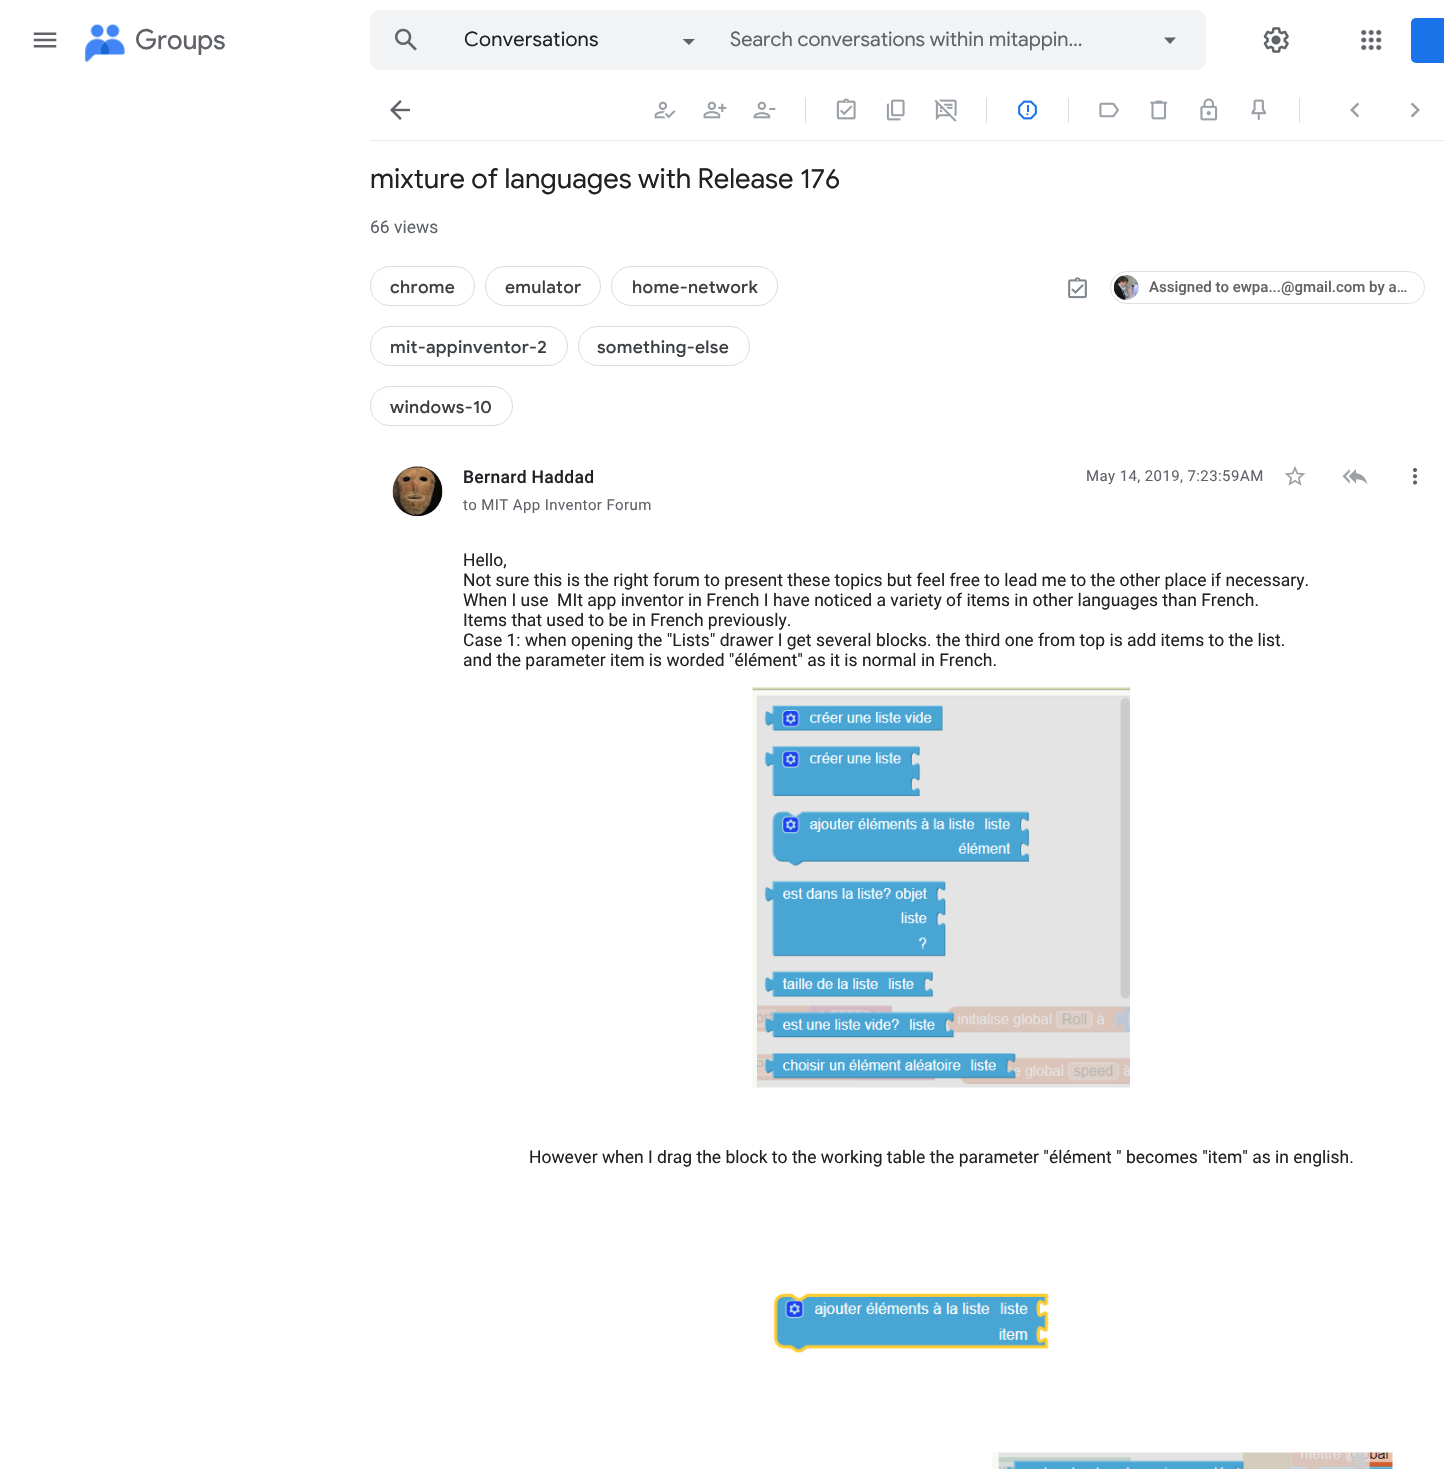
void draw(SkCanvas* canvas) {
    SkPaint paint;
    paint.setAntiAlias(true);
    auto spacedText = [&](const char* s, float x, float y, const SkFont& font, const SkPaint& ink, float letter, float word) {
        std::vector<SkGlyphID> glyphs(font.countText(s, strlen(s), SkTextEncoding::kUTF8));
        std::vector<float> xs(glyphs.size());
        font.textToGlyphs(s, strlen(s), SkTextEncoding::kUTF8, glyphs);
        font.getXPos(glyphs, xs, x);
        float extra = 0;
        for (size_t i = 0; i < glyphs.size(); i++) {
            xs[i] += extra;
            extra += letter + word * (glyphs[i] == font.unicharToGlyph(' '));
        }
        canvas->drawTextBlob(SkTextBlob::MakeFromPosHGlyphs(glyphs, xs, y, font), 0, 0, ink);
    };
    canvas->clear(0xFFFFFFFF);
    canvas->drawImageRect(SkImages::DeferredFromEncodedData(SkData::MakeFromFileName("img1.png")), SkRect::MakeXYWH(33, 32, 24, 16), SkSamplingOptions());
    canvas->drawImageRect(SkImages::DeferredFromEncodedData(SkData::MakeFromFileName("img2.png")), SkRect::MakeXYWH(85, 23, 40, 40), SkSamplingOptions());
    SkFont font1(fontMgr->matchFamilyStyle("Product Sans", SkFontStyle::Normal()), 27.5f);
    font1.setSubpixel(true);
    paint.setColor(0xFF5F6368);
    canvas->drawString("Groups", 135, 49, font1, paint);
    paint.setColor(0xFFF1F3F4);
    canvas->drawRoundRect(SkRect::MakeXYWH(370, 10, 836, 60), 10, 10, paint);
    canvas->drawImageRect(SkImages::DeferredFromEncodedData(SkData::MakeFromFileName("img3.png")), SkRect::MakeXYWH(395, 28, 22, 23), SkSamplingOptions());
    SkFont font2(fontMgr->matchFamilyStyle("Google Sans", SkFontStyle::Normal()), 20);
    font2.setSubpixel(true);
    paint.setColor(0xFF202124);
    spacedText("Conversations", 464, 46, font2, paint, 0.25f, 0);
    paint.setColor(0xFF5F6368);
    canvas->drawPath(SkPathBuilder().moveTo(682.5f, 39).lineTo(695, 39).lineTo(689, 45).close().detach(), paint);
    canvas->drawString("Search conversations within mitappin…", 730, 46, font2, paint);
    canvas->drawPath(SkPathBuilder().moveTo(1164, 37.5f).lineTo(1170, 44).lineTo(1176, 37.5f).close().detach(), paint);
    canvas->drawImageRect(SkImages::DeferredFromEncodedData(SkData::MakeFromFileName("img4.png")), SkRect::MakeXYWH(1263, 27, 26, 26), SkSamplingOptions());
    canvas->drawImageRect(SkImages::DeferredFromEncodedData(SkData::MakeFromFileName("img5.png")), SkRect::MakeXYWH(1361, 30, 21, 20), SkSamplingOptions());
    paint.setColor(0xFF1A73E8);
    canvas->drawRoundRect(SkRect::MakeXYWH(1411, 18, 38, 45), 5, 5, paint);
    paint.setColor(0xFFE8EAED);
    canvas->drawRect(SkRect::MakeXYWH(370, 140, 1074, 1), paint);
    canvas->drawImageRect(SkImages::DeferredFromEncodedData(SkData::MakeFromFileName("img6.png")), SkRect::MakeXYWH(390, 100, 20, 20), SkSamplingOptions());
    canvas->drawImageRect(SkImages::DeferredFromEncodedData(SkData::MakeFromFileName("img7.png")), SkRect::MakeXYWH(654, 101, 22, 18), SkSamplingOptions());
    canvas->drawImageRect(SkImages::DeferredFromEncodedData(SkData::MakeFromFileName("img8.png")), SkRect::MakeXYWH(703, 101, 24, 18), SkSamplingOptions());
    canvas->drawImageRect(SkImages::DeferredFromEncodedData(SkData::MakeFromFileName("img9.png")), SkRect::MakeXYWH(753, 101, 23, 18), SkSamplingOptions());
    paint.setColor(0xFFDDDDDD);
    canvas->drawRect(SkRect::MakeXYWH(805, 98, 1, 25), paint);
    canvas->drawImageRect(SkImages::DeferredFromEncodedData(SkData::MakeFromFileName("img10.png")), SkRect::MakeXYWH(836, 98, 20, 22), SkSamplingOptions());
    canvas->drawImageRect(SkImages::DeferredFromEncodedData(SkData::MakeFromFileName("img11.png")), SkRect::MakeXYWH(886, 99, 19, 22), SkSamplingOptions());
    canvas->drawImageRect(SkImages::DeferredFromEncodedData(SkData::MakeFromFileName("img12.png")), SkRect::MakeXYWH(934, 99, 23, 23), SkSamplingOptions());
    canvas->drawRect(SkRect::MakeXYWH(986, 98, 1, 25), paint);
    canvas->drawImageRect(SkImages::DeferredFromEncodedData(SkData::MakeFromFileName("img13.png")), SkRect::MakeXYWH(1018, 100, 19, 20), SkSamplingOptions());
    canvas->drawRect(SkRect::MakeXYWH(1068, 98, 1, 25), paint);
    canvas->drawImageRect(SkImages::DeferredFromEncodedData(SkData::MakeFromFileName("img14.png")), SkRect::MakeXYWH(1099, 102, 20, 16), SkSamplingOptions());
    canvas->drawImageRect(SkImages::DeferredFromEncodedData(SkData::MakeFromFileName("img15.png")), SkRect::MakeXYWH(1150, 100, 18, 20), SkSamplingOptions());
    canvas->drawImageRect(SkImages::DeferredFromEncodedData(SkData::MakeFromFileName("img16.png")), SkRect::MakeXYWH(1200, 98, 18, 23), SkSamplingOptions());
    canvas->drawImageRect(SkImages::DeferredFromEncodedData(SkData::MakeFromFileName("img17.png")), SkRect::MakeXYWH(1251, 99, 16, 22), SkSamplingOptions());
    canvas->drawRect(SkRect::MakeXYWH(1299, 98, 1, 25), paint);
    canvas->drawImageRect(SkImages::DeferredFromEncodedData(SkData::MakeFromFileName("img18.png")), SkRect::MakeXYWH(1350, 102, 10, 16), SkSamplingOptions());
    canvas->drawImageRect(SkImages::DeferredFromEncodedData(SkData::MakeFromFileName("img19.png")), SkRect::MakeXYWH(1410, 102, 10, 16), SkSamplingOptions());
    SkFont font3(fontMgr->matchFamilyStyle("Google Sans", SkFontStyle::Normal()), 27.5f);
    font3.setSubpixel(true);
    paint.setColor(0xFF202124);
    canvas->drawString("mixture of languages with Release 176", 370, 188, font3, paint);
    SkFont font4(fontMgr->matchFamilyStyle("Roboto", SkFontStyle::Normal()), 17.5f);
    font4.setSubpixel(true);
    paint.setColor(0xFF5F6368);
    canvas->drawString("66 views", 370, 233, font4, paint);
    paint.setStyle(SkPaint::kStroke_Style);
    paint.setStrokeWidth(1);
    paint.setColor(0xFFDADCE0);
    canvas->drawRoundRect(SkRect::MakeXYWH(370.5f, 266.5f, 104, 39), 19.5f, 19.5f, paint);
    SkFont font5(fontMgr->matchFamilyStyle("Google Sans", SkFontStyle(500, SkFontStyle::kNormal_Width, SkFontStyle::kUpright_Slant)), 17.5f);
    font5.setSubpixel(true);
    paint.setStyle(SkPaint::kFill_Style);
    paint.setColor(0xFF3C4043);
    spacedText("chrome", 390, 293, font5, paint, 0.3f, 0);
    paint.setStyle(SkPaint::kStroke_Style);
    paint.setColor(0xFFDADCE0);
    canvas->drawRoundRect(SkRect::MakeXYWH(485.5f, 266.5f, 115, 39), 19.5f, 19.5f, paint);
    paint.setStyle(SkPaint::kFill_Style);
    paint.setColor(0xFF3C4043);
    spacedText("emulator", 505, 293, font5, paint, 0.3f, 0);
    paint.setStyle(SkPaint::kStroke_Style);
    paint.setColor(0xFFDADCE0);
    canvas->drawRoundRect(SkRect::MakeXYWH(611.5f, 266.5f, 166, 39), 19.5f, 19.5f, paint);
    paint.setStyle(SkPaint::kFill_Style);
    paint.setColor(0xFF3C4043);
    spacedText("home-network", 632, 293, font5, paint, 0.3f, 0);
    paint.setStyle(SkPaint::kStroke_Style);
    paint.setColor(0xFFDADCE0);
    canvas->drawRoundRect(SkRect::MakeXYWH(370.5f, 326.5f, 197, 39), 19.5f, 19.5f, paint);
    paint.setStyle(SkPaint::kFill_Style);
    paint.setColor(0xFF3C4043);
    spacedText("mit-appinventor-2", 390, 353, font5, paint, 0.3f, 0);
    paint.setStyle(SkPaint::kStroke_Style);
    paint.setColor(0xFFDADCE0);
    canvas->drawRoundRect(SkRect::MakeXYWH(578.5f, 326.5f, 171, 39), 19.5f, 19.5f, paint);
    paint.setStyle(SkPaint::kFill_Style);
    paint.setColor(0xFF3C4043);
    spacedText("something-else", 597, 353, font5, paint, 0.3f, 0);
    paint.setStyle(SkPaint::kStroke_Style);
    paint.setColor(0xFFDADCE0);
    canvas->drawRoundRect(SkRect::MakeXYWH(370.5f, 386.5f, 142, 39), 19.5f, 19.5f, paint);
    paint.setStyle(SkPaint::kFill_Style);
    paint.setColor(0xFF3C4043);
    spacedText("windows-10", 390, 413, font5, paint, 0.3f, 0);
    canvas->drawImageRect(SkImages::DeferredFromEncodedData(SkData::MakeFromFileName("img20.png")), SkRect::MakeXYWH(1068, 277, 19, 22), SkSamplingOptions());
    paint.setStyle(SkPaint::kStroke_Style);
    paint.setColor(0xFFE0E0E0);
    canvas->drawRoundRect(SkRect::MakeXYWH(1110.5f, 271.5f, 314, 32), 16, 16, paint);
    canvas->drawImageRect(SkImages::DeferredFromEncodedData(SkData::MakeFromFileName("img21.png")), SkRect::MakeXYWH(1113, 275, 26, 25), SkSamplingOptions());
    SkFont font6(fontMgr->matchFamilyStyle("Roboto", SkFontStyle(500, SkFontStyle::kNormal_Width, SkFontStyle::kUpright_Slant)), 15);
    font6.setSubpixel(true);
    paint.setStyle(SkPaint::kFill_Style);
    paint.setColor(0xFF616161);
    canvas->drawString("Assigned to ewpa...@gmail.com by a…", 1149, 292, font6, paint);
    canvas->drawImageRect(SkImages::DeferredFromEncodedData(SkData::MakeFromFileName("img22.png")), SkRect::MakeXYWH(392, 466, 51, 51), SkSamplingOptions());
    SkFont font7(fontMgr->matchFamilyStyle("Roboto", SkFontStyle(500, SkFontStyle::kNormal_Width, SkFontStyle::kUpright_Slant)), 17.5f);
    font7.setSubpixel(true);
    paint.setColor(0xFF202124);
    spacedText("Bernard Haddad", 463, 483, font7, paint, 0.3f, 0);
    SkFont font8(fontMgr->matchFamilyStyle("Roboto", SkFontStyle::Normal()), 15);
    font8.setSubpixel(true);
    paint.setColor(0xFF5F6368);
    spacedText("May 14, 2019, 7:23:59 AM", 1086, 481, font8, paint, 0.4f, 0);
    canvas->drawImageRect(SkImages::DeferredFromEncodedData(SkData::MakeFromFileName("img23.png")), SkRect::MakeXYWH(1284, 466, 22, 20), SkSamplingOptions());
    canvas->drawImageRect(SkImages::DeferredFromEncodedData(SkData::MakeFromFileName("img24.png")), SkRect::MakeXYWH(1342, 469, 26, 16), SkSamplingOptions());
    canvas->drawImageRect(SkImages::DeferredFromEncodedData(SkData::MakeFromFileName("img25.png")), SkRect::MakeXYWH(1412, 468, 6, 17), SkSamplingOptions());
    spacedText("to MIT App Inventor Forum", 463, 510, font8, paint, 0.4f, 0);
    paint.setColor(0xFF202124);
    canvas->drawString("Hello,", 463, 566, font4, paint);
    canvas->drawString("Not sure this is the right forum to present these topics but feel free to lead me to the other place if necessary.", 463, 586, font4, paint);
    canvas->drawString("When I use  MIt app inventor in French I have noticed a variety of items in other languages than French.", 463, 606, font4, paint);
    canvas->drawString("Items that used to be in French previously.", 463, 626, font4, paint);
    canvas->drawString("Case 1: when opening the \"Lists\" drawer I get several blocks. the third one from top is add items to the list.", 463, 646, font4, paint);
    canvas->drawString("and the parameter item is worded \"élément\" as it is normal in French.", 463, 666, font4, paint);
    canvas->drawImageRect(SkImages::DeferredFromEncodedData(SkData::MakeFromFileName("img26.png")), SkRect::MakeXYWH(752, 687, 378, 401), SkSamplingOptions());
    canvas->drawString("However when I drag the block to the working table the parameter \"élément \" becomes \"item\" as in english.", 529, 1163, font4, paint);
    canvas->drawImageRect(SkImages::DeferredFromEncodedData(SkData::MakeFromFileName("img27.png")), SkRect::MakeXYWH(773, 1293, 276, 61), SkSamplingOptions());
    canvas->drawImageRect(SkImages::DeferredFromEncodedData(SkData::MakeFromFileName("img28.png")), SkRect::MakeXYWH(992, 1452, 401, 17), SkSamplingOptions());
}
